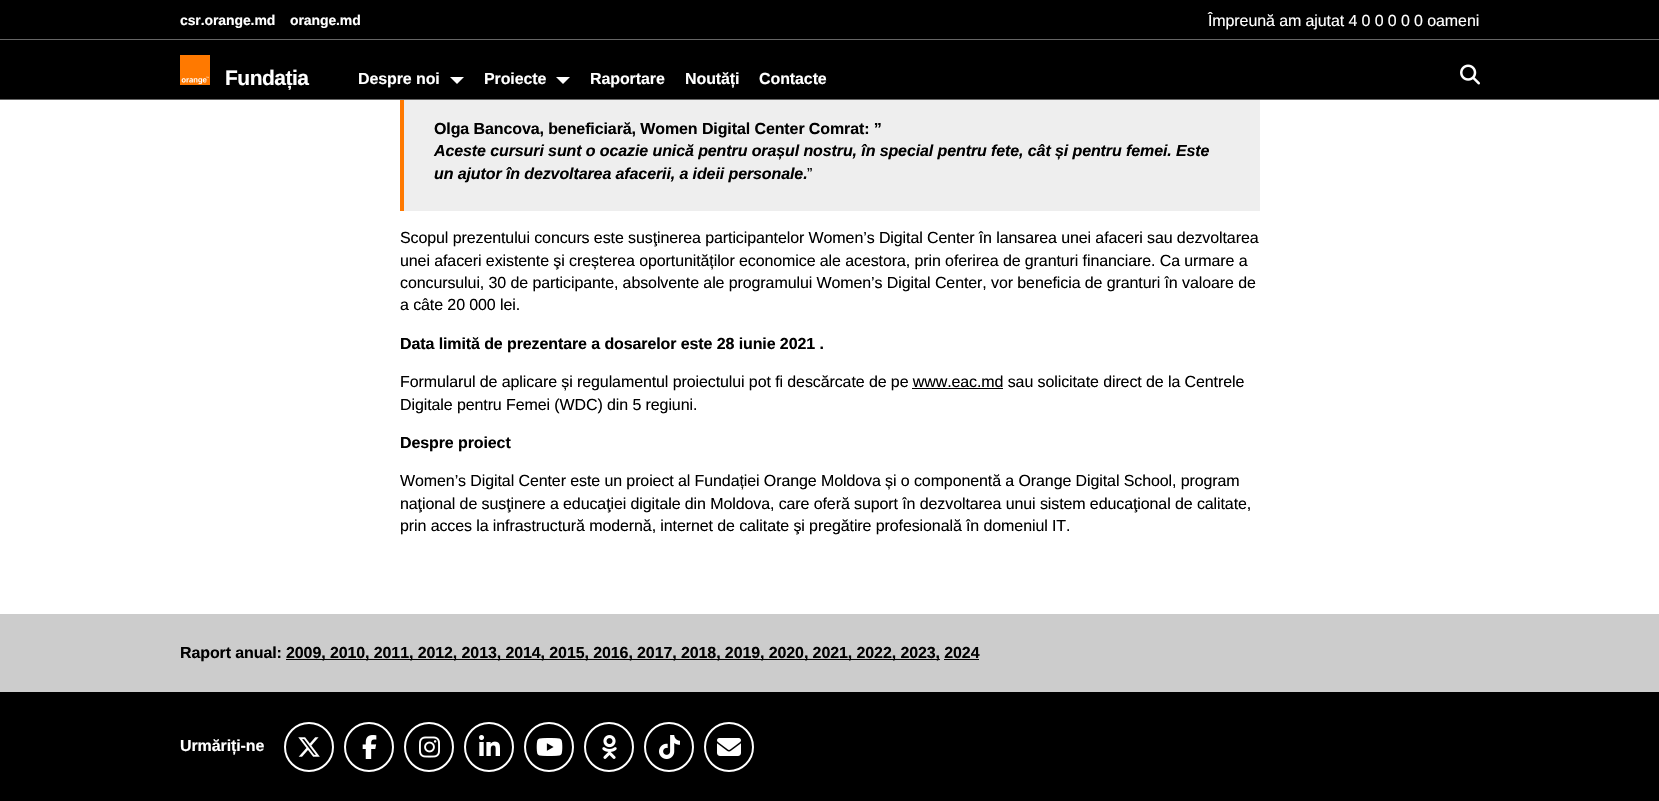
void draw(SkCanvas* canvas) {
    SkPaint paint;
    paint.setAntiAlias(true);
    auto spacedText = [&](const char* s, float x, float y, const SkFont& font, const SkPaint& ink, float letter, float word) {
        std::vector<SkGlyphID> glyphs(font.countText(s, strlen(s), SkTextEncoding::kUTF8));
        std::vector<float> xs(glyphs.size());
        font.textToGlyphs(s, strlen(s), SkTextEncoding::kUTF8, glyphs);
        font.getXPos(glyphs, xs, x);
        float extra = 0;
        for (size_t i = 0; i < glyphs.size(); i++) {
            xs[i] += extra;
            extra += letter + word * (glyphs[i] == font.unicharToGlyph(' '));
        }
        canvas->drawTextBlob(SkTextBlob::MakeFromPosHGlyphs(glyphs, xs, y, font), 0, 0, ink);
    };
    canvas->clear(0xFFFFFFFF);
    paint.setColor(0xFF000000);
    canvas->drawRect(SkRect::MakeXYWH(0, 0, 1659, 39), paint);
    paint.setColor(0xFF666666);
    canvas->drawRect(SkRect::MakeXYWH(0, 39, 1659, 1), paint);
    SkFont font1(fontMgr->matchFamilyStyle("Liberation Sans", SkFontStyle::Bold()), 14);
    font1.setSubpixel(true);
    paint.setColor(0xFFFFFFFF);
    spacedText("csr.orange.md", 180, 25, font1, paint, -0.1f, 0);
    spacedText("orange.md", 290, 25, font1, paint, -0.1f, 0);
    SkFont font2(fontMgr->matchFamilyStyle("Liberation Sans", SkFontStyle::Normal()), 16);
    font2.setSubpixel(true);
    spacedText("Împreună am ajutat 4 0 0 0 0 0 oameni", 1208, 26, font2, paint, -0.1f, 0);
    paint.setColor(0xFFFF7900);
    canvas->drawRect(SkRect::MakeXYWH(400, 98, 4, 113), paint);
    paint.setColor(0xFF000000);
    canvas->drawRect(SkRect::MakeXYWH(0, 40, 1659, 59), paint);
    paint.setColor(0xFF666666);
    canvas->drawRect(SkRect::MakeXYWH(0, 99, 1659, 1), paint);
    canvas->drawImageRect(SkImages::DeferredFromEncodedData(SkData::MakeFromFileName("img1.png")), SkRect::MakeXYWH(180, 55, 30, 30), SkSamplingOptions());
    SkFont font3(fontMgr->matchFamilyStyle("Liberation Sans", SkFontStyle::Bold()), 21);
    font3.setSubpixel(true);
    paint.setColor(0xFFFFFFFF);
    spacedText("Fundația", 225, 85, font3, paint, -0.5f, 0);
    SkFont font4(fontMgr->matchFamilyStyle("Liberation Sans", SkFontStyle::Bold()), 16);
    font4.setSubpixel(true);
    spacedText("Despre noi", 358, 84, font4, paint, -0.1f, 0);
    canvas->drawPath(SkPathBuilder().moveTo(450, 77).lineTo(464, 77).lineTo(457, 84).close().detach(), paint);
    spacedText("Proiecte", 484, 84, font4, paint, -0.1f, 0);
    canvas->drawPath(SkPathBuilder().moveTo(556, 77).lineTo(570, 77).lineTo(563, 84).close().detach(), paint);
    spacedText("Raportare", 590, 84, font4, paint, -0.1f, 0);
    spacedText("Noutăți", 685, 84, font4, paint, -0.1f, 0);
    spacedText("Contacte", 759, 84, font4, paint, -0.1f, 0);
    canvas->drawImageRect(SkImages::DeferredFromEncodedData(SkData::MakeFromFileName("img2.png")), SkRect::MakeXYWH(1460, 64, 20, 21), SkSamplingOptions());
    paint.setColor(0xFFEEEEEE);
    canvas->drawRect(SkRect::MakeXYWH(404, 100, 856, 111), paint);
    paint.setColor(0xFF000000);
    spacedText("Olga Bancova, beneficiară, Women Digital Center Comrat: ”", 434, 134, font4, paint, -0.1f, 0);
    SkFont font5(fontMgr->matchFamilyStyle("Liberation Sans", SkFontStyle::BoldItalic()), 16);
    font5.setSubpixel(true);
    spacedText("Aceste cursuri sunt o ocazie unică pentru orașul nostru, în special pentru fete, cât și pentru femei. Este", 434, 156, font5, paint, -0.1f, 0);
    spacedText("un ajutor în dezvoltarea afacerii, a ideii personale.", 434, 179, font5, paint, -0.1f, 0);
    spacedText("”", 807, 179, font2, paint, -0.1f, 0);
    spacedText("Scopul prezentului concurs este susţinerea participantelor Women’s Digital Center în lansarea unei afaceri sau dezvoltarea", 400, 243, font2, paint, -0.1f, 0);
    spacedText("unei afaceri existente şi creșterea oportunităților economice ale acestora, prin oferirea de granturi financiare. Ca urmare a", 400, 266, font2, paint, -0.1f, 0);
    spacedText("concursului, 30 de participante, absolvente ale programului Women’s Digital Center, vor beneficia de granturi în valoare de", 400, 288, font2, paint, -0.1f, 0);
    spacedText("a câte 20 000 lei.", 400, 310, font2, paint, -0.1f, 0);
    spacedText("Data limită de prezentare a dosarelor este 28 iunie 2021 .", 400, 349, font4, paint, -0.1f, 0);
    spacedText("Formularul de aplicare și regulamentul proiectului pot fi descărcate de pe www.eac.md sau solicitate direct de la Centrele", 400, 387, font2, paint, -0.1f, 0);
    canvas->drawRect(SkRect::MakeXYWH(912, 388, 91, 1), paint);
    spacedText("Digitale pentru Femei (WDC) din 5 regiuni.", 400, 410, font2, paint, -0.1f, 0);
    spacedText("Despre proiect", 400, 448, font4, paint, -0.1f, 0);
    spacedText("Women’s Digital Center este un proiect al Fundației Orange Moldova și o componentă a Orange Digital School, program", 400, 486, font2, paint, -0.1f, 0);
    spacedText("naţional de susţinere a educaţiei digitale din Moldova, care oferă suport în dezvoltarea unui sistem educaţional de calitate,", 400, 509, font2, paint, -0.1f, 0);
    spacedText("prin acces la infrastructură modernă, internet de calitate şi pregătire profesională în domeniul IT.", 400, 531, font2, paint, -0.1f, 0);
    paint.setColor(0xFFCCCCCC);
    canvas->drawRect(SkRect::MakeXYWH(0, 614, 1659, 78), paint);
    paint.setColor(0xFF000000);
    spacedText("Raport anual:", 180, 658, font4, paint, -0.1f, 0);
    canvas->drawRect(SkRect::MakeXYWH(286, 659, 654, 1), paint);
    spacedText("2009, 2010, 2011, 2012, 2013, 2014, 2015, 2016, 2017, 2018, 2019, 2020, 2021, 2022, 2023, 2024", 286, 658, font4, paint, -0.1f, 0);
    canvas->drawRect(SkRect::MakeXYWH(944, 659, 35, 1), paint);
    canvas->drawRect(SkRect::MakeXYWH(0, 692, 1659, 109), paint);
    paint.setColor(0xFFFFFFFF);
    spacedText("Urmăriți-ne", 180, 751, font4, paint, -0.1f, 0);
    paint.setStyle(SkPaint::kStroke_Style);
    paint.setStrokeWidth(2);
    canvas->drawCircle(309, 747, 24, paint);
    canvas->drawImageRect(SkImages::DeferredFromEncodedData(SkData::MakeFromFileName("img3.png")), SkRect::MakeXYWH(298, 737, 22, 20), SkSamplingOptions());
    canvas->drawCircle(369, 747, 24, paint);
    canvas->drawImageRect(SkImages::DeferredFromEncodedData(SkData::MakeFromFileName("img4.png")), SkRect::MakeXYWH(362, 735, 15, 24), SkSamplingOptions());
    canvas->drawCircle(429, 747, 24, paint);
    canvas->drawImageRect(SkImages::DeferredFromEncodedData(SkData::MakeFromFileName("img5.png")), SkRect::MakeXYWH(419, 736, 21, 22), SkSamplingOptions());
    canvas->drawCircle(489, 747, 24, paint);
    canvas->drawImageRect(SkImages::DeferredFromEncodedData(SkData::MakeFromFileName("img6.png")), SkRect::MakeXYWH(479, 735, 21, 21), SkSamplingOptions());
    canvas->drawCircle(549, 747, 24, paint);
    canvas->drawImageRect(SkImages::DeferredFromEncodedData(SkData::MakeFromFileName("img7.png")), SkRect::MakeXYWH(536, 738, 27, 18), SkSamplingOptions());
    canvas->drawCircle(609, 747, 24, paint);
    canvas->drawImageRect(SkImages::DeferredFromEncodedData(SkData::MakeFromFileName("img8.png")), SkRect::MakeXYWH(602, 735, 15, 24), SkSamplingOptions());
    canvas->drawCircle(669, 747, 24, paint);
    canvas->drawImageRect(SkImages::DeferredFromEncodedData(SkData::MakeFromFileName("img9.png")), SkRect::MakeXYWH(659, 735, 21, 24), SkSamplingOptions());
    canvas->drawCircle(729, 747, 24, paint);
    canvas->drawImageRect(SkImages::DeferredFromEncodedData(SkData::MakeFromFileName("img10.png")), SkRect::MakeXYWH(717, 738, 24, 18), SkSamplingOptions());
}
